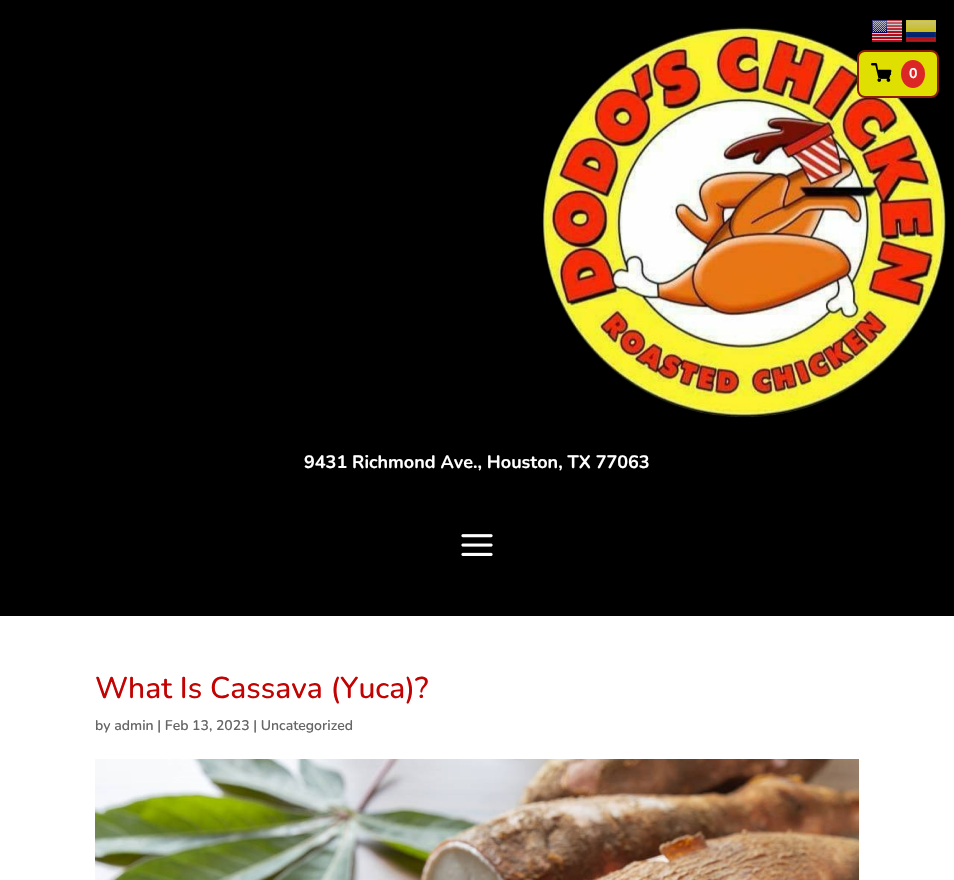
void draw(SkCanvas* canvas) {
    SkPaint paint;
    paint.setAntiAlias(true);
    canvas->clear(0xFFFFFFFF);
    paint.setColor(0xFF000000);
    canvas->drawRect(SkRect::MakeXYWH(0, 0, 954, 616), paint);
    canvas->drawImageRect(SkImages::DeferredFromEncodedData(SkData::MakeFromFileName("img3.png")), SkRect::MakeXYWH(542, 27, 404, 390), SkSamplingOptions());
    canvas->drawImageRect(SkImages::DeferredFromEncodedData(SkData::MakeFromFileName("img1.png")), SkRect::MakeXYWH(872, 20, 30, 22), SkSamplingOptions());
    canvas->drawImageRect(SkImages::DeferredFromEncodedData(SkData::MakeFromFileName("img2.png")), SkRect::MakeXYWH(906, 20, 30, 22), SkSamplingOptions());
    paint.setColor(0xFFDFDF01);
    canvas->drawRoundRect(SkRect::MakeXYWH(858, 51, 80, 46), 7, 7, paint);
    paint.setStyle(SkPaint::kStroke_Style);
    paint.setStrokeWidth(2);
    paint.setColor(0xFF8C1E05);
    canvas->drawRoundRect(SkRect::MakeXYWH(858, 51, 80, 46), 7, 7, paint);
    canvas->drawImageRect(SkImages::DeferredFromEncodedData(SkData::MakeFromFileName("img4.png")), SkRect::MakeXYWH(871, 63, 21, 19), SkSamplingOptions());
    paint.setStyle(SkPaint::kFill_Style);
    paint.setColor(0xFFDC2626);
    canvas->drawOval(SkRect::MakeXYWH(901, 60, 24, 28), paint);
    SkFont font1(fontMgr->matchFamilyStyle("Nunito", SkFontStyle::Bold()), 14);
    font1.setSubpixel(true);
    paint.setColor(0xFFFFFFFF);
    canvas->drawString("0", 909, 78, font1, paint);
    SkFont font2(fontMgr->matchFamilyStyle("Nunito", SkFontStyle::Bold()), 18);
    font2.setSubpixel(true);
    canvas->drawString("9431 Richmond Ave., Houston, TX 77063", 304, 468, font2, paint);
    canvas->drawImageRect(SkImages::DeferredFromEncodedData(SkData::MakeFromFileName("img5.png")), SkRect::MakeXYWH(461, 534, 32, 22), SkSamplingOptions());
    SkFont font3(fontMgr->matchFamilyStyle("Nunito", SkFontStyle(500, SkFontStyle::kNormal_Width, SkFontStyle::kUpright_Slant)), 30);
    font3.setSubpixel(true);
    paint.setColor(0xFFC10303);
    canvas->drawString("What Is Cassava (Yuca)?", 95, 698, font3, paint);
    SkFont font4(fontMgr->matchFamilyStyle("Nunito", SkFontStyle(600, SkFontStyle::kNormal_Width, SkFontStyle::kUpright_Slant)), 14);
    font4.setSubpixel(true);
    paint.setColor(0xFF666666);
    canvas->drawString("by admin | Feb 13, 2023 | Uncategorized", 95, 730, font4, paint);
    canvas->drawImageRect(SkImages::DeferredFromEncodedData(SkData::MakeFromFileName("img6.png")), SkRect::MakeXYWH(95, 759, 764, 121), SkSamplingOptions());
}
